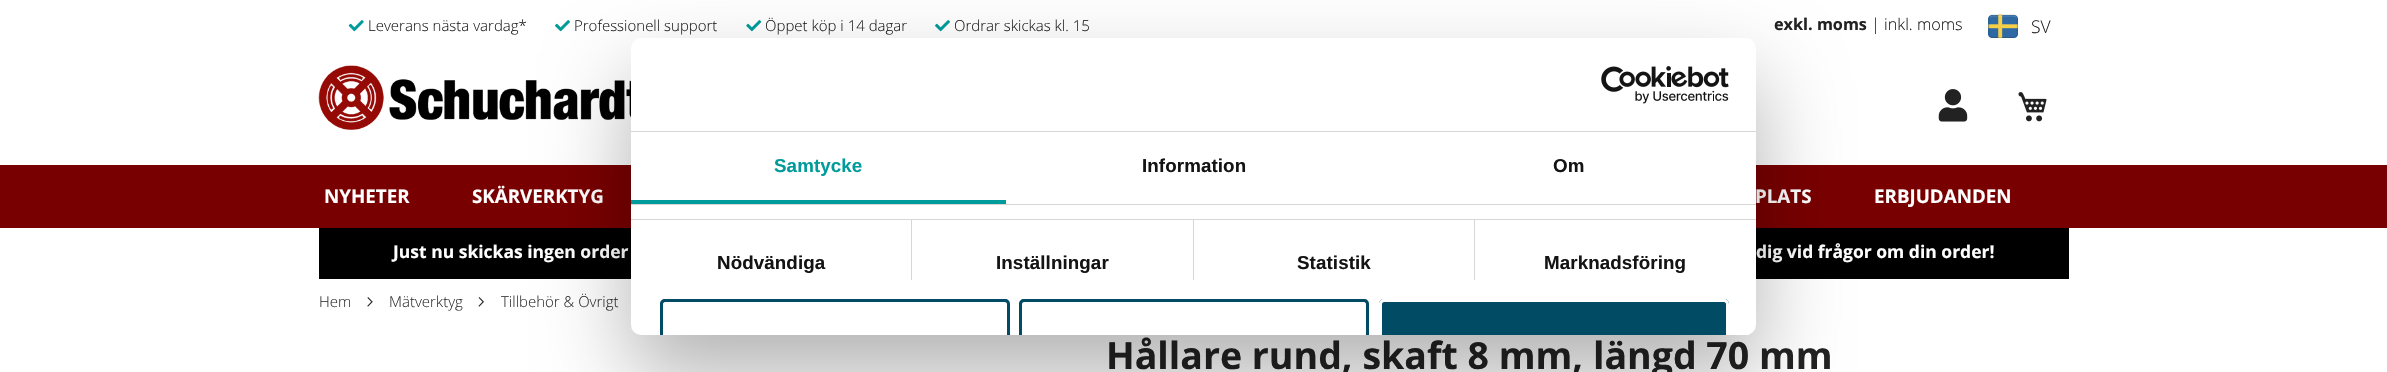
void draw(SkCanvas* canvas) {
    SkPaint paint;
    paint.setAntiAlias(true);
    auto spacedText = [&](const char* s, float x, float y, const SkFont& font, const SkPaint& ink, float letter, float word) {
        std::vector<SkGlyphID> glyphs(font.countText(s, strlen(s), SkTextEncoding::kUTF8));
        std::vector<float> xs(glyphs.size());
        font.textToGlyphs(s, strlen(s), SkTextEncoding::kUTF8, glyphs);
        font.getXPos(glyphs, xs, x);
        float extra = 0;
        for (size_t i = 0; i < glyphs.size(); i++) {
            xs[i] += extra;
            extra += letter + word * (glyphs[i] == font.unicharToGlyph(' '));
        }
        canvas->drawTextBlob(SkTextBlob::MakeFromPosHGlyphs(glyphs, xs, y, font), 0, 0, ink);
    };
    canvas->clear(0xFFFFFFFF);
    canvas->drawImageRect(SkImages::DeferredFromEncodedData(SkData::MakeFromFileName("img1.png")), SkRect::MakeXYWH(348, 20, 16, 12), SkSamplingOptions());
    SkFont font1(fontMgr->matchFamilyStyle("Open Sans", SkFontStyle(300, SkFontStyle::kNormal_Width, SkFontStyle::kUpright_Slant)), 15);
    font1.setSubpixel(true);
    paint.setColor(0xFF222222);
    canvas->drawString("Leverans nästa vardag*", 368, 31, font1, paint);
    canvas->drawImageRect(SkImages::DeferredFromEncodedData(SkData::MakeFromFileName("img2.png")), SkRect::MakeXYWH(555, 20, 15, 12), SkSamplingOptions());
    canvas->drawString("Professionell support", 574, 31, font1, paint);
    canvas->drawImageRect(SkImages::DeferredFromEncodedData(SkData::MakeFromFileName("img3.png")), SkRect::MakeXYWH(746, 20, 16, 12), SkSamplingOptions());
    canvas->drawString("Öppet köp i 14 dagar", 765, 31, font1, paint);
    canvas->drawImageRect(SkImages::DeferredFromEncodedData(SkData::MakeFromFileName("img2.png")), SkRect::MakeXYWH(935, 20, 15, 12), SkSamplingOptions());
    canvas->drawString("Ordrar skickas kl. 15", 954, 31, font1, paint);
    SkFont font2(fontMgr->matchFamilyStyle("Open Sans", SkFontStyle::Bold()), 16.25f);
    font2.setSubpixel(true);
    canvas->drawString("exkl. moms", 1774, 30, font2, paint);
    SkFont font3(fontMgr->matchFamilyStyle("Open Sans", SkFontStyle(300, SkFontStyle::kNormal_Width, SkFontStyle::kUpright_Slant)), 16.25f);
    font3.setSubpixel(true);
    canvas->drawString("| inkl. moms", 1871, 30, font3, paint);
    canvas->drawImageRect(SkImages::DeferredFromEncodedData(SkData::MakeFromFileName("img4.png")), SkRect::MakeXYWH(1988, 14, 30, 24), SkSamplingOptions());
    SkFont font4(fontMgr->matchFamilyStyle("Open Sans", SkFontStyle(300, SkFontStyle::kNormal_Width, SkFontStyle::kUpright_Slant)), 17.5f);
    font4.setSubpixel(true);
    canvas->drawString("SV", 2031, 33, font4, paint);
    canvas->drawImageRect(SkImages::DeferredFromEncodedData(SkData::MakeFromFileName("img5.png")), SkRect::MakeXYWH(318, 65, 313, 65), SkSamplingOptions());
    canvas->drawImageRect(SkImages::DeferredFromEncodedData(SkData::MakeFromFileName("img6.png")), SkRect::MakeXYWH(1938, 89, 30, 33), SkSamplingOptions());
    canvas->drawImageRect(SkImages::DeferredFromEncodedData(SkData::MakeFromFileName("img7.png")), SkRect::MakeXYWH(2018, 92, 29, 30), SkSamplingOptions());
    paint.setColor(0xFF790000);
    canvas->drawRect(SkRect::MakeXYWH(0, 165, 2387, 63), paint);
    SkFont font5(fontMgr->matchFamilyStyle("Open Sans", SkFontStyle::Bold()), 18.75f);
    font5.setSubpixel(true);
    paint.setColor(0xFFFFFFFF);
    canvas->drawString("NYHETER", 324, 203, font5, paint);
    canvas->drawString("SKÄRVERKTYG", 472, 203, font5, paint);
    canvas->drawString("PLATS", 1755, 203, font5, paint);
    canvas->drawString("ERBJUDANDEN", 1874, 203, font5, paint);
    paint.setColor(0xFF000000);
    canvas->drawRect(SkRect::MakeXYWH(319, 228, 1750, 51), paint);
    SkFont font6(fontMgr->matchFamilyStyle("Open Sans", SkFontStyle::Bold()), 17.5f);
    font6.setSubpixel(true);
    paint.setColor(0xFFFFFFFF);
    canvas->drawString("Just nu skickas ingen order", 393, 258, font6, paint);
    canvas->drawString("dig vid frågor om din order!", 1756, 258, font6, paint);
    paint.setColor(0xFF333333);
    canvas->drawString("Hem", 319, 307, font1, paint);
    canvas->drawImageRect(SkImages::DeferredFromEncodedData(SkData::MakeFromFileName("img8.png")), SkRect::MakeXYWH(367, 297, 6, 10), SkSamplingOptions());
    canvas->drawString("Mätverktyg", 389, 307, font1, paint);
    canvas->drawImageRect(SkImages::DeferredFromEncodedData(SkData::MakeFromFileName("img9.png")), SkRect::MakeXYWH(478, 297, 6, 10), SkSamplingOptions());
    canvas->drawString("Tillbehör & Övrigt", 501, 307, font1, paint);
    SkFont font7(fontMgr->matchFamilyStyle("Open Sans", SkFontStyle::Bold()), 37.5f);
    font7.setSubpixel(true);
    paint.setColor(0xFF222222);
    canvas->drawString("Hållare rund, skaft 8 mm, längd 70 mm", 1106, 369, font7, paint);
    paint.setColor(0x4D000000);
    paint.setMaskFilter(SkMaskFilter::MakeBlur(kNormal_SkBlurStyle, 42.5f));
    canvas->drawRoundRect(SkRect::MakeXYWH(631, 78, 1125, 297), 10, 10, paint);
    paint.setMaskFilter(nullptr);
    paint.setColor(0xFFFFFFFF);
    canvas->drawRoundRect(SkRect::MakeXYWH(631, 38, 1125, 297), 10, 10, paint);
    paint.setColor(0xFFD6D6D6);
    canvas->drawRect(SkRect::MakeXYWH(631, 131, 1125, 1), paint);
    canvas->drawImageRect(SkImages::DeferredFromEncodedData(SkData::MakeFromFileName("img10.png")), SkRect::MakeXYWH(1601, 66, 128, 38), SkSamplingOptions());
    canvas->drawRect(SkRect::MakeXYWH(631, 204, 1125, 1), paint);
    paint.setColor(0xFF009B9A);
    canvas->drawRect(SkRect::MakeXYWH(631, 200, 375, 4), paint);
    SkFont font8(fontMgr->matchFamilyStyle("Liberation Sans", SkFontStyle::Bold()), 18.75f);
    font8.setSubpixel(true);
    spacedText("Samtycke", 774, 172, font8, paint, 0.1f, 0);
    paint.setColor(0xFF141414);
    spacedText("Information", 1142, 172, font8, paint, 0.1f, 0);
    spacedText("Om", 1553, 172, font8, paint, 0.1f, 0);
    paint.setColor(0xFFD6D6D6);
    canvas->drawRect(SkRect::MakeXYWH(631, 219, 1125, 1), paint);
    canvas->drawRect(SkRect::MakeXYWH(911, 220, 1, 60), paint);
    paint.setColor(0xFF141414);
    spacedText("Nödvändiga", 717, 269, font8, paint, 0.1f, 0);
    paint.setColor(0xFFD6D6D6);
    canvas->drawRect(SkRect::MakeXYWH(1193, 220, 1, 60), paint);
    paint.setColor(0xFF141414);
    spacedText("Inställningar", 996, 269, font8, paint, 0.1f, 0);
    paint.setColor(0xFFD6D6D6);
    canvas->drawRect(SkRect::MakeXYWH(1474, 220, 1, 60), paint);
    paint.setColor(0xFF141414);
    spacedText("Statistik", 1297, 269, font8, paint, 0.1f, 0);
    spacedText("Marknadsföring", 1544, 269, font8, paint, 0.1f, 0);
    paint.setColor(0xFF024B65);
    canvas->drawPath(SkPathBuilder().moveTo(665, 299).cubicTo(662, 299, 660, 301, 660, 304).lineTo(660, 335).lineTo(663, 335).lineTo(663, 304).cubicTo(663, 303, 664, 302, 665, 302).lineTo(1005, 302).cubicTo(1006, 302, 1007, 303, 1007, 304).lineTo(1007, 335).lineTo(1010, 335).lineTo(1010, 304).cubicTo(1010, 301, 1008, 299, 1005, 299).close().detach(), paint);
    canvas->drawPath(SkPathBuilder().moveTo(1024, 299).cubicTo(1021, 299, 1019, 301, 1019, 304).lineTo(1019, 335).lineTo(1022, 335).lineTo(1022, 304).cubicTo(1022, 303, 1023, 302, 1024, 302).lineTo(1364, 302).cubicTo(1365, 302, 1366, 303, 1366, 304).lineTo(1366, 335).lineTo(1369, 335).lineTo(1369, 304).cubicTo(1369, 301, 1367, 299, 1364, 299).close().detach(), paint);
    canvas->drawPath(SkPathBuilder().moveTo(1384, 299).lineTo(1724, 299).cubicTo(1727, 299, 1729, 301, 1729, 304).lineTo(1729, 335).lineTo(1379, 335).lineTo(1379, 304).cubicTo(1379, 301, 1381, 299, 1384, 299).close().detach(), paint);
    paint.setColor(0xFFFFFFFF);
    canvas->drawPath(SkPathBuilder().moveTo(1384, 299).cubicTo(1381, 299, 1379, 301, 1379, 304).lineTo(1379, 335).lineTo(1382, 335).lineTo(1382, 304).cubicTo(1382, 303, 1383, 302, 1384, 302).lineTo(1724, 302).cubicTo(1725, 302, 1726, 303, 1726, 304).lineTo(1726, 335).lineTo(1729, 335).lineTo(1729, 304).cubicTo(1729, 301, 1727, 299, 1724, 299).close().detach(), paint);
    canvas->drawRect(SkRect::MakeXYWH(1747, 334, 2, 1), paint);
}
